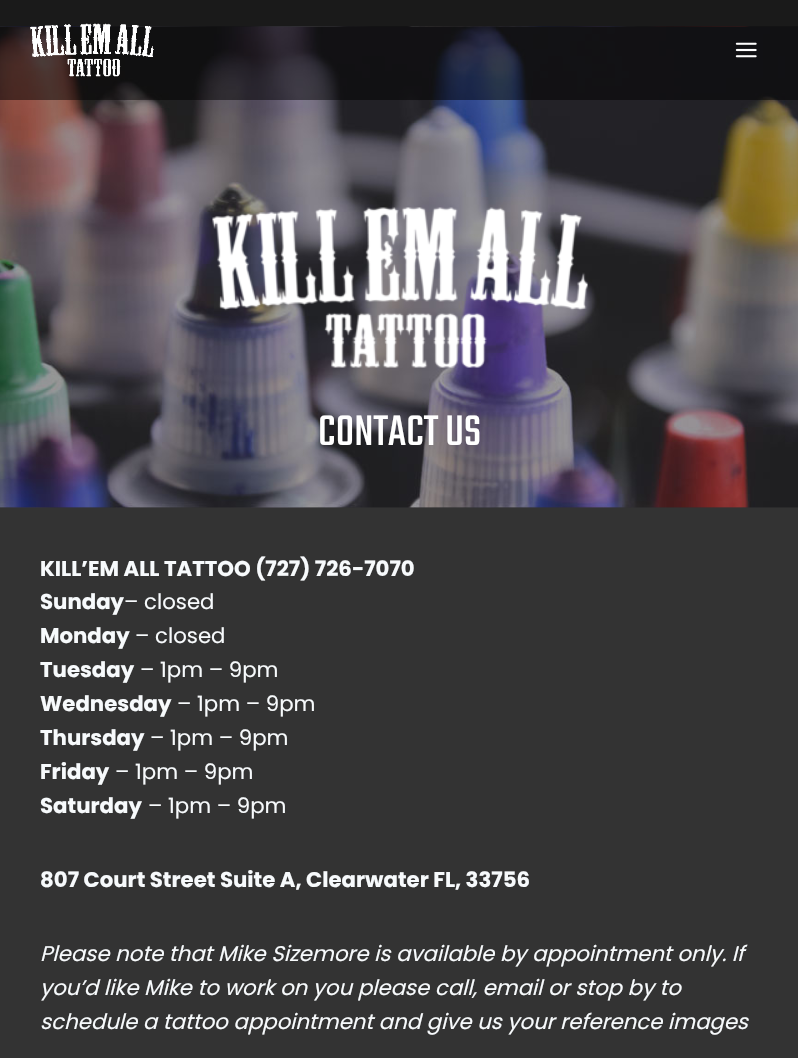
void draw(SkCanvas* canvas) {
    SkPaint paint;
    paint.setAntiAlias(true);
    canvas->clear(0xFF333333);
    canvas->drawImageRect(SkImages::DeferredFromEncodedData(SkData::MakeFromFileName("img3.png")), SkRect::MakeXYWH(0, 26, 798, 482), SkSamplingOptions());
    paint.setColor(0x80000000);
    canvas->drawRect(SkRect::MakeXYWH(0, 0, 798, 100), paint);
    canvas->drawImageRect(SkImages::DeferredFromEncodedData(SkData::MakeFromFileName("img1.png")), SkRect::MakeXYWH(30, 23, 124, 54), SkSamplingOptions());
    canvas->drawImageRect(SkImages::DeferredFromEncodedData(SkData::MakeFromFileName("img2.png")), SkRect::MakeXYWH(735, 42, 22, 16), SkSamplingOptions());
    canvas->drawImageRect(SkImages::DeferredFromEncodedData(SkData::MakeFromFileName("img4.png")), SkRect::MakeXYWH(212, 207, 376, 161), SkSamplingOptions());
    SkFont font1(fontMgr->matchFamilyStyle("Teko", SkFontStyle::Normal()), 47);
    font1.setSubpixel(true);
    paint.setColor(0xFFFFFFFF);
    canvas->drawString("CONTACT US", 318, 445, font1, paint);
    SkFont font2(fontMgr->matchFamilyStyle("Poppins", SkFontStyle::Bold()), 21.25f);
    font2.setSubpixel(true);
    paint.setColor(0xFFF7FAFC);
    canvas->drawString("KILL’EM ALL TATTOO (727) 726-7070", 40, 576, font2, paint);
    canvas->drawString("Sunday", 40, 609, font2, paint);
    SkFont font3(fontMgr->matchFamilyStyle("Poppins", SkFontStyle::Normal()), 21.25f);
    font3.setSubpixel(true);
    canvas->drawString("– closed", 124, 609, font3, paint);
    canvas->drawString("Monday", 40, 643, font2, paint);
    canvas->drawString("– closed", 135, 643, font3, paint);
    canvas->drawString("Tuesday", 40, 677, font2, paint);
    canvas->drawString("– 1pm – 9pm", 140, 677, font3, paint);
    canvas->drawString("Wednesday", 40, 711, font2, paint);
    canvas->drawString("– 1pm – 9pm", 177, 711, font3, paint);
    canvas->drawString("Thursday", 40, 745, font2, paint);
    canvas->drawString("– 1pm – 9pm", 150, 745, font3, paint);
    canvas->drawString("Friday", 40, 779, font2, paint);
    canvas->drawString("– 1pm – 9pm", 115, 779, font3, paint);
    canvas->drawString("Saturday", 40, 813, font2, paint);
    canvas->drawString("– 1pm – 9pm", 148, 813, font3, paint);
    canvas->drawString("807 Court Street Suite A, Clearwater FL, 33756", 40, 887, font2, paint);
    SkFont font4(fontMgr->matchFamilyStyle("Poppins", SkFontStyle::Italic()), 21.25f);
    font4.setSubpixel(true);
    canvas->drawString("Please note that Mike Sizemore is available by appointment only. If", 40, 961, font4, paint);
    canvas->drawString("you’d like Mike to work on you please call, email or stop by to", 40, 995, font4, paint);
    canvas->drawString("schedule a tattoo appointment and give us your reference images", 40, 1029, font4, paint);
}
